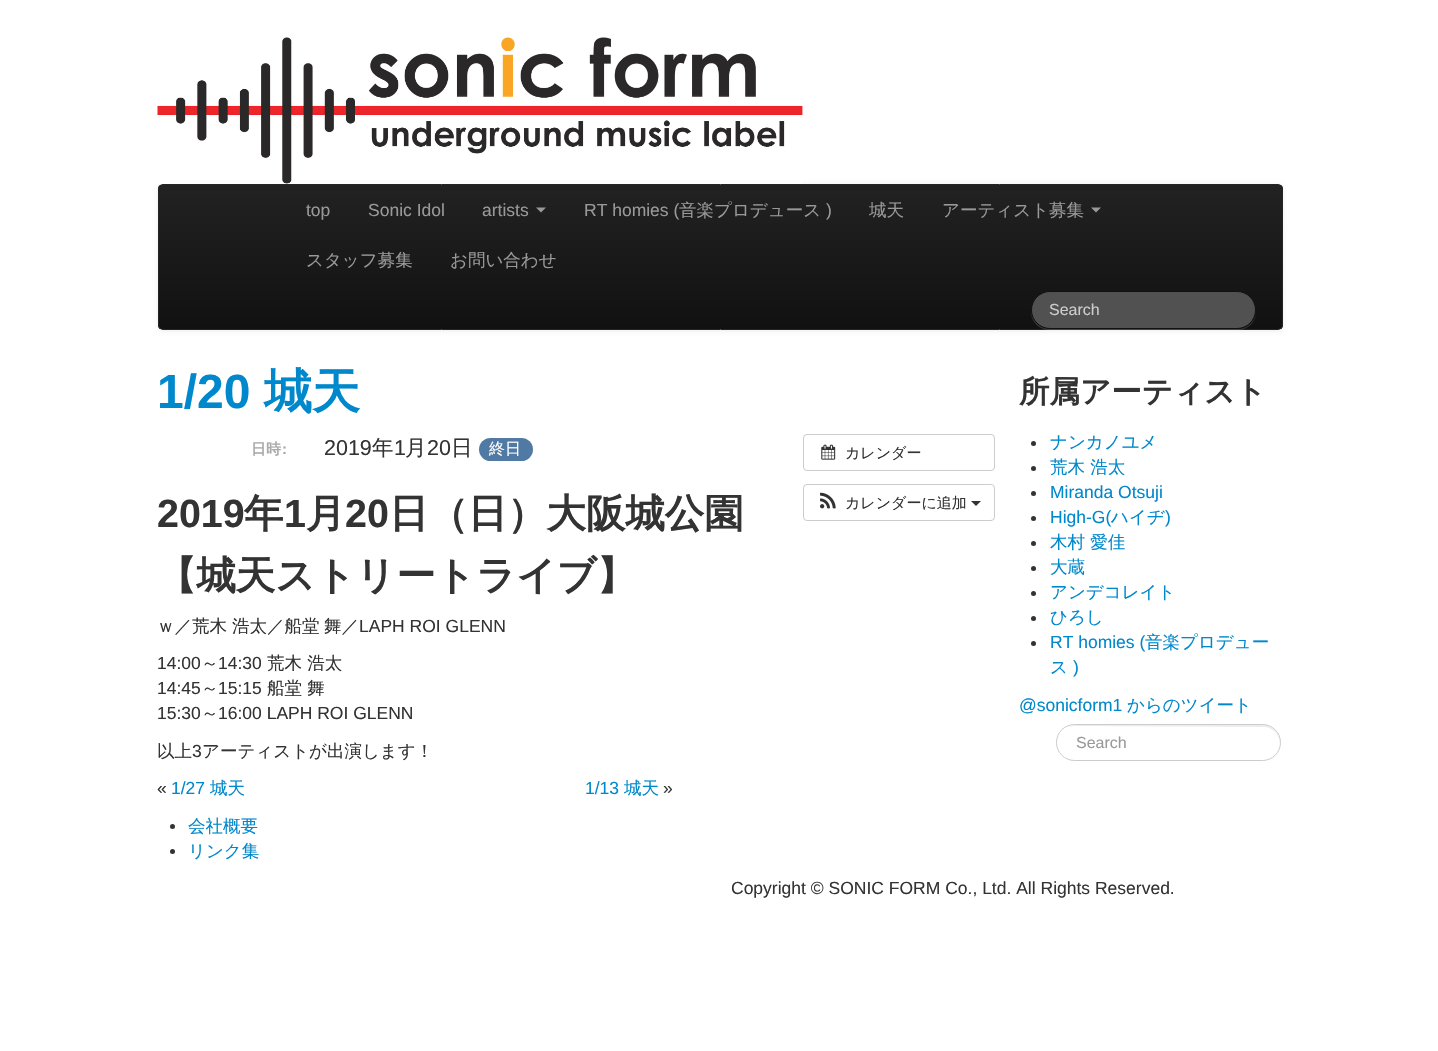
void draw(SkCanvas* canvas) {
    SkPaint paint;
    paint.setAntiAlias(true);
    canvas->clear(0xFFFFFFFF);
    paint.setColor(0x12000000);
    paint.setMaskFilter(SkMaskFilter::MakeBlur(kNormal_SkBlurStyle, 2.5f));
    canvas->drawRoundRect(SkRect::MakeXYWH(158, 185, 1125, 146), 5, 5, paint);
    paint.setMaskFilter(nullptr);
    canvas->drawImageRect(SkImages::DeferredFromEncodedData(SkData::MakeFromFileName("img1.png")), SkRect::MakeXYWH(157, 37, 646, 147), SkSamplingOptions());
    canvas->save();
    canvas->clipPath(SkPathBuilder().moveTo(163, 184).lineTo(1278, 184).cubicTo(1281, 184, 1283, 186, 1283, 189).lineTo(1283, 325).cubicTo(1283, 328, 1281, 330, 1278, 330).lineTo(163, 330).cubicTo(160, 330, 158, 328, 158, 325).lineTo(158, 189).cubicTo(158, 186, 160, 184, 163, 184).close().detach(), true);
    {
        const SkColor colors[] = {0xFF222222, 0xFF111111};
        const float stops[] = {0, 1};
        const SkPoint ends[] = {{720, 185}, {720, 329}};
        paint.setShader(SkGradientShader::MakeLinear(ends, colors, stops, 2, SkTileMode::kClamp));
        paint.setAlpha(255);
    }
    canvas->drawRect(SkRect::MakeXYWH(158, 185, 1125, 144), paint);
    canvas->restore();
    paint.setStyle(SkPaint::kStroke_Style);
    paint.setStrokeWidth(1);
    paint.setShader(nullptr);
    paint.setColor(0xFF252525);
    canvas->drawRoundRect(SkRect::MakeXYWH(158.5f, 184.5f, 1124, 145), 4.5f, 4.5f, paint);
    SkFont font1(fontMgr->matchFamilyStyle("Liberation Sans", SkFontStyle::Normal()), 17.5f);
    font1.setSubpixel(true);
    paint.setStyle(SkPaint::kFill_Style);
    paint.setColor(0xFF999999);
    canvas->drawString("top", 306, 216, font1, paint);
    canvas->drawString("Sonic Idol", 368, 216, font1, paint);
    canvas->drawString("artists", 482, 216, font1, paint);
    canvas->drawPath(SkPathBuilder().moveTo(536, 207.5f).lineTo(546, 207.5f).lineTo(541, 212.5f).close().detach(), paint);
    canvas->drawString("RT homies (", 584, 216, font1, paint);
    SkFont font2(fontMgr->matchFamilyStyle("WenQuanYi Zen Hei", SkFontStyle(500, SkFontStyle::kNormal_Width, SkFontStyle::kUpright_Slant)), 17.5f);
    font2.setSubpixel(true);
    canvas->drawString("音楽プロデュース", 679, 216, font2, paint);
    canvas->drawString(")", 826, 216, font1, paint);
    canvas->drawString("城天", 869, 216, font2, paint);
    canvas->drawString("アーティスト募集", 942, 216, font2, paint);
    canvas->drawPath(SkPathBuilder().moveTo(1091, 207.5f).lineTo(1101, 207.5f).lineTo(1096, 212.5f).close().detach(), paint);
    canvas->drawString("スタッフ募集", 306, 266, font2, paint);
    canvas->drawString("お問い合わせ", 450, 266, font2, paint);
    paint.setColor(0x26FFFFFF);
    canvas->drawPath(SkPathBuilder().moveTo(1031, 308).lineTo(1031, 312).cubicTo(1031, 322, 1039, 330, 1050, 330).lineTo(1238, 330).cubicTo(1247, 330, 1255, 323, 1256, 314).cubicTo(1254, 322, 1247, 329, 1238, 329).lineTo(1050, 329).cubicTo(1040, 329, 1031, 320, 1031, 310).close().detach(), paint);
    paint.setColor(0xFF515151);
    canvas->drawRoundRect(SkRect::MakeXYWH(1031.5f, 291.5f, 224, 37), 18.5f, 18.5f, paint);
    paint.setStyle(SkPaint::kStroke_Style);
    paint.setColor(0xFF111111);
    canvas->drawRoundRect(SkRect::MakeXYWH(1031.5f, 291.5f, 224, 37), 18.5f, 18.5f, paint);
    SkFont font3(fontMgr->matchFamilyStyle("Liberation Sans", SkFontStyle::Normal()), 16);
    font3.setSubpixel(true);
    paint.setStyle(SkPaint::kFill_Style);
    paint.setColor(0xFFCCCCCC);
    canvas->drawString("Search", 1049, 315, font3, paint);
    SkFont font4(fontMgr->matchFamilyStyle("Liberation Sans", SkFontStyle::Bold()), 48);
    font4.setSubpixel(true);
    paint.setColor(0xFF0088CC);
    canvas->drawString("1/20", 157, 408, font4, paint);
    SkFont font5(fontMgr->matchFamilyStyle("WenQuanYi Zen Hei", SkFontStyle::Bold()), 48);
    font5.setSubpixel(true);
    canvas->drawString("城天", 264, 408, font5, paint);
    SkFont font6(fontMgr->matchFamilyStyle("WenQuanYi Zen Hei", SkFontStyle::Bold()), 15);
    font6.setSubpixel(true);
    paint.setColor(0xFFAAAAAA);
    canvas->drawString("日時", 251, 454, font6, paint);
    SkFont font7(fontMgr->matchFamilyStyle("Liberation Sans", SkFontStyle::Bold()), 15);
    font7.setSubpixel(true);
    canvas->drawString(":", 282, 454, font7, paint);
    SkFont font8(fontMgr->matchFamilyStyle("Liberation Sans", SkFontStyle::Normal()), 21.5f);
    font8.setSubpixel(true);
    paint.setColor(0xFF333333);
    canvas->drawString("2019", 324, 455, font8, paint);
    SkFont font9(fontMgr->matchFamilyStyle("WenQuanYi Zen Hei", SkFontStyle(500, SkFontStyle::kNormal_Width, SkFontStyle::kUpright_Slant)), 21.5f);
    font9.setSubpixel(true);
    canvas->drawString("年", 372, 455, font9, paint);
    canvas->drawString("1", 394, 455, font8, paint);
    canvas->drawString("月", 405, 455, font9, paint);
    canvas->drawString("20", 427, 455, font8, paint);
    canvas->drawString("日", 451, 455, font9, paint);
    paint.setColor(0xFF507AA3);
    canvas->drawRoundRect(SkRect::MakeXYWH(479, 438, 54, 23), 11.5f, 11.5f, paint);
    SkFont font10(fontMgr->matchFamilyStyle("WenQuanYi Zen Hei", SkFontStyle(500, SkFontStyle::kNormal_Width, SkFontStyle::kUpright_Slant)), 16);
    font10.setSubpixel(true);
    paint.setColor(0xFFFFFFFF);
    canvas->drawString("終日", 489, 454, font10, paint);
    paint.setStyle(SkPaint::kStroke_Style);
    paint.setColor(0xFFCCCCCC);
    canvas->drawRoundRect(SkRect::MakeXYWH(803.5f, 434.5f, 191, 36), 3.5f, 3.5f, paint);
    canvas->drawImageRect(SkImages::DeferredFromEncodedData(SkData::MakeFromFileName("img2.png")), SkRect::MakeXYWH(821, 444, 15, 16), SkSamplingOptions());
    SkFont font11(fontMgr->matchFamilyStyle("WenQuanYi Zen Hei", SkFontStyle(500, SkFontStyle::kNormal_Width, SkFontStyle::kUpright_Slant)), 15);
    font11.setSubpixel(true);
    paint.setStyle(SkPaint::kFill_Style);
    paint.setColor(0xFF333333);
    canvas->drawString("カレンダー", 845, 458, font11, paint);
    paint.setStyle(SkPaint::kStroke_Style);
    paint.setColor(0xFFCCCCCC);
    canvas->drawRoundRect(SkRect::MakeXYWH(803.5f, 484.5f, 191, 36), 3.5f, 3.5f, paint);
    canvas->drawImageRect(SkImages::DeferredFromEncodedData(SkData::MakeFromFileName("img3.png")), SkRect::MakeXYWH(820, 492, 16, 17), SkSamplingOptions());
    paint.setStyle(SkPaint::kFill_Style);
    paint.setColor(0xFF333333);
    canvas->drawString("カレンダーに追加", 845, 508, font11, paint);
    canvas->drawPath(SkPathBuilder().moveTo(971, 501).lineTo(981, 501).lineTo(976, 506).close().detach(), paint);
    SkFont font12(fontMgr->matchFamilyStyle("Liberation Sans", SkFontStyle::Bold()), 39.4f);
    font12.setSubpixel(true);
    canvas->drawString("2019", 157, 527, font12, paint);
    SkFont font13(fontMgr->matchFamilyStyle("WenQuanYi Zen Hei", SkFontStyle::Bold()), 39.4f);
    font13.setSubpixel(true);
    canvas->drawString("年", 244, 527, font13, paint);
    canvas->drawString("1", 284, 527, font12, paint);
    canvas->drawString("月", 306, 527, font13, paint);
    canvas->drawString("20", 345, 527, font12, paint);
    canvas->drawString("日（日）大阪城公園", 389, 527, font13, paint);
    canvas->drawString("【城天ストリートライブ】", 157, 589, font13, paint);
    canvas->drawString("ｗ／荒木", 157, 632, font2, paint);
    canvas->drawString("浩太／船堂", 232, 632, font2, paint);
    canvas->drawString("舞／", 324, 632, font2, paint);
    canvas->drawString("LAPH ROI GLENN", 359, 632, font1, paint);
    canvas->drawString("14:00", 157, 669, font1, paint);
    canvas->drawString("～", 201, 669, font2, paint);
    canvas->drawString("14:30", 218, 669, font1, paint);
    canvas->drawString("荒木 浩太", 267, 669, font2, paint);
    canvas->drawString("14:45", 157, 694, font1, paint);
    canvas->drawString("～", 201, 694, font2, paint);
    canvas->drawString("15:15", 218, 694, font1, paint);
    canvas->drawString("船堂 舞", 267, 694, font2, paint);
    canvas->drawString("15:30", 157, 719, font1, paint);
    canvas->drawString("～", 201, 719, font2, paint);
    canvas->drawString("16:00 LAPH ROI GLENN", 218, 719, font1, paint);
    canvas->drawString("以上", 157, 757, font2, paint);
    canvas->drawString("3", 192, 757, font1, paint);
    canvas->drawString("アーティストが出演します！", 202, 757, font2, paint);
    canvas->drawString("«", 157, 794, font1, paint);
    paint.setColor(0xFF0088CC);
    canvas->drawString("1/27", 171, 794, font1, paint);
    canvas->drawString("城天", 210, 794, font2, paint);
    canvas->drawString("1/13", 585, 794, font1, paint);
    canvas->drawString("城天", 624, 794, font2, paint);
    paint.setColor(0xFF333333);
    canvas->drawString("»", 663, 794, font1, paint);
    SkFont font14(fontMgr->matchFamilyStyle("WenQuanYi Zen Hei", SkFontStyle::Bold()), 30.5f);
    font14.setSubpixel(true);
    canvas->drawString("所属アーティスト", 1019, 402, font14, paint);
    canvas->drawCircle(1033.5f, 443.5f, 2.5f, paint);
    paint.setColor(0xFF0088CC);
    canvas->drawString("ナンカノユメ", 1050, 448, font2, paint);
    paint.setColor(0xFF333333);
    canvas->drawCircle(1033.5f, 468.5f, 2.5f, paint);
    paint.setColor(0xFF0088CC);
    canvas->drawString("荒木 浩太", 1050, 473, font2, paint);
    paint.setColor(0xFF333333);
    canvas->drawCircle(1033.5f, 493.5f, 2.5f, paint);
    paint.setColor(0xFF0088CC);
    canvas->drawString("Miranda Otsuji", 1050, 498, font1, paint);
    paint.setColor(0xFF333333);
    canvas->drawCircle(1033.5f, 518.5f, 2.5f, paint);
    paint.setColor(0xFF0088CC);
    canvas->drawString("High-G(", 1050, 523, font1, paint);
    canvas->drawString("ハイヂ", 1111, 523, font2, paint);
    canvas->drawString(")", 1165, 523, font1, paint);
    paint.setColor(0xFF333333);
    canvas->drawCircle(1033.5f, 543.5f, 2.5f, paint);
    paint.setColor(0xFF0088CC);
    canvas->drawString("木村 愛佳", 1050, 548, font2, paint);
    paint.setColor(0xFF333333);
    canvas->drawCircle(1033.5f, 568.5f, 2.5f, paint);
    paint.setColor(0xFF0088CC);
    canvas->drawString("大蔵", 1050, 573, font2, paint);
    paint.setColor(0xFF333333);
    canvas->drawCircle(1033.5f, 593.5f, 2.5f, paint);
    paint.setColor(0xFF0088CC);
    canvas->drawString("アンデコレイト", 1050, 598, font2, paint);
    paint.setColor(0xFF333333);
    canvas->drawCircle(1033.5f, 618.5f, 2.5f, paint);
    paint.setColor(0xFF0088CC);
    canvas->drawString("ひろし", 1050, 623, font2, paint);
    paint.setColor(0xFF333333);
    canvas->drawCircle(1033.5f, 643.5f, 2.5f, paint);
    paint.setColor(0xFF0088CC);
    canvas->drawString("RT homies (", 1050, 648, font1, paint);
    canvas->drawString("音楽プロデュー", 1145, 648, font2, paint);
    canvas->drawString("ス", 1050, 673, font2, paint);
    canvas->drawString(")", 1073, 673, font1, paint);
    canvas->drawString("@sonicform1", 1019, 711, font1, paint);
    canvas->drawString("からのツイート", 1127, 711, font2, paint);
    paint.setColor(0xFFECECEC);
    canvas->drawPath(SkPathBuilder().moveTo(1075, 726).lineTo(1266, 727).cubicTo(1275, 729, 1280, 736, 1280, 744).lineTo(1280, 742).cubicTo(1280, 733, 1272, 725, 1262, 725).lineTo(1076, 725).cubicTo(1068, 725, 1062, 730, 1059, 736).cubicTo(1062, 730, 1067, 726, 1075, 726).close().detach(), paint);
    paint.setStyle(SkPaint::kStroke_Style);
    paint.setColor(0xFFCCCCCC);
    canvas->drawRoundRect(SkRect::MakeXYWH(1056.5f, 724.5f, 224, 36), 18, 18, paint);
    paint.setStyle(SkPaint::kFill_Style);
    paint.setColor(0xFF999999);
    canvas->drawString("Search", 1076, 748, font3, paint);
    paint.setColor(0xFF333333);
    canvas->drawCircle(172.5f, 826.5f, 2.5f, paint);
    paint.setColor(0xFF0088CC);
    canvas->drawString("会社概要", 188, 832, font2, paint);
    paint.setColor(0xFF333333);
    canvas->drawCircle(172.5f, 851.5f, 2.5f, paint);
    paint.setColor(0xFF0088CC);
    canvas->drawString("リンク集", 188, 857, font2, paint);
    paint.setColor(0xFF333333);
    canvas->drawString("Copyright © SONIC FORM Co., Ltd. All Rights Reserved.", 731, 894, font1, paint);
}
